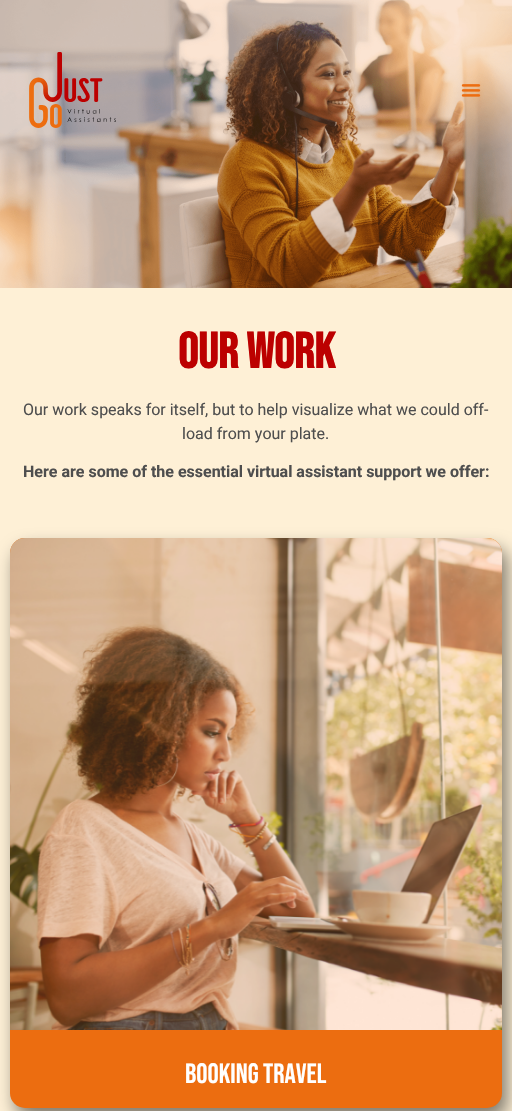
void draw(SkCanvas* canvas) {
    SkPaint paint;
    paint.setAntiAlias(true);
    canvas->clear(0xFFFEF0D6);
    canvas->drawImageRect(SkImages::DeferredFromEncodedData(SkData::MakeFromFileName("img3.png")), SkRect::MakeXYWH(0, 0, 512, 288), SkSamplingOptions());
    canvas->drawImageRect(SkImages::DeferredFromEncodedData(SkData::MakeFromFileName("img1.png")), SkRect::MakeXYWH(29, 52, 87, 76), SkSamplingOptions());
    canvas->drawImageRect(SkImages::DeferredFromEncodedData(SkData::MakeFromFileName("img2.png")), SkRect::MakeXYWH(461, 84, 20, 13), SkSamplingOptions());
    SkFont font1(fontMgr->matchFamilyStyle("Bebas Neue", SkFontStyle::Bold()), 50);
    font1.setSubpixel(true);
    paint.setColor(0xFFBC0000);
    canvas->drawString("OUR WORK", 178, 368, font1, paint);
    SkFont font2(fontMgr->matchFamilyStyle("Roboto", SkFontStyle::Normal()), 16);
    font2.setSubpixel(true);
    paint.setColor(0xFF4E4E4E);
    canvas->drawString("Our work speaks for itself, but to help visualize what we could off-", 23, 415, font2, paint);
    canvas->drawString("load from your plate.", 182, 439, font2, paint);
    SkFont font3(fontMgr->matchFamilyStyle("Roboto", SkFontStyle::Bold()), 16);
    font3.setSubpixel(true);
    canvas->drawString("Here are some of the essential virtual assistant support we offer:", 23, 477, font3, paint);
    paint.setColor(0x80000000);
    paint.setMaskFilter(SkMaskFilter::MakeBlur(kNormal_SkBlurStyle, 8.5f));
    canvas->drawRoundRect(SkRect::MakeXYWH(15, 548, 492, 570), 15, 15, paint);
    paint.setMaskFilter(nullptr);
    paint.setColor(0xFFEC6D10);
    canvas->drawRoundRect(SkRect::MakeXYWH(10, 538, 492, 570), 15, 15, paint);
    canvas->drawImageRect(SkImages::DeferredFromEncodedData(SkData::MakeFromFileName("img4.png")), SkRect::MakeXYWH(10, 538, 492, 492), SkSamplingOptions());
    SkFont font4(fontMgr->matchFamilyStyle("Bebas Neue", SkFontStyle::Normal()), 28);
    font4.setSubpixel(true);
    paint.setColor(0xFFFFFFFF);
    canvas->drawString("Booking Travel", 185, 1083, font4, paint);
}
